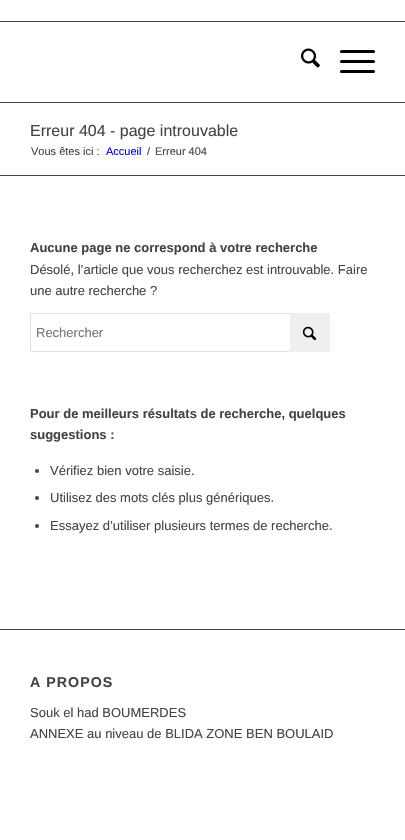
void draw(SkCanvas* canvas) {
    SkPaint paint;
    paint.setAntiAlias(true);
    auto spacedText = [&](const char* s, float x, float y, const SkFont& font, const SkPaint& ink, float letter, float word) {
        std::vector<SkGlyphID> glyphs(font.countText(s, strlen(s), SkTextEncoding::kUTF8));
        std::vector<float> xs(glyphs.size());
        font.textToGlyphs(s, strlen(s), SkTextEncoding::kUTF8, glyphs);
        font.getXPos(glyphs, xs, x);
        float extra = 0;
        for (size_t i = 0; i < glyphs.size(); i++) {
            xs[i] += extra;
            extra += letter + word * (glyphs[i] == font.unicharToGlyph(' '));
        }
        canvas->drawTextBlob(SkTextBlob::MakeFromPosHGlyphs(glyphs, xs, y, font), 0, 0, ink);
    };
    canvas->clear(0xFFFFFFFF);
    paint.setColor(0xFF444444);
    canvas->drawRect(SkRect::MakeXYWH(0, 21, 405, 1), paint);
    canvas->drawRect(SkRect::MakeXYWH(0, 102, 405, 1), paint);
    canvas->drawImageRect(SkImages::DeferredFromEncodedData(SkData::MakeFromFileName("img1.png")), SkRect::MakeXYWH(301, 48, 19, 20), SkSamplingOptions());
    paint.setColor(0xFF000000);
    canvas->drawRoundRect(SkRect::MakeXYWH(340, 60, 35, 3), 1.5f, 1.5f, paint);
    canvas->drawRoundRect(SkRect::MakeXYWH(340, 50, 35, 3), 1.5f, 1.5f, paint);
    canvas->drawRoundRect(SkRect::MakeXYWH(340, 70, 35, 3), 1.5f, 1.5f, paint);
    SkFont font1(fontMgr->matchFamilyStyle("Liberation Sans", SkFontStyle::Normal()), 16);
    font1.setSubpixel(true);
    paint.setColor(0xFF444444);
    canvas->drawString("Erreur 404 - page introuvable", 30, 136, font1, paint);
    SkFont font2(fontMgr->matchFamilyStyle("Liberation Sans", SkFontStyle::Normal()), 11);
    font2.setSubpixel(true);
    canvas->drawString("Vous êtes ici :", 31, 155, font2, paint);
    paint.setColor(0xFF0000EE);
    canvas->drawString("Accueil", 106, 155, font2, paint);
    paint.setColor(0xFF444444);
    canvas->drawString("/", 147, 155, font2, paint);
    canvas->drawString("Erreur 404", 155, 155, font2, paint);
    canvas->drawRect(SkRect::MakeXYWH(0, 175, 405, 1), paint);
    SkFont font3(fontMgr->matchFamilyStyle("Liberation Sans", SkFontStyle::Bold()), 13);
    font3.setSubpixel(true);
    canvas->drawString("Aucune page ne correspond à votre recherche", 30, 252, font3, paint);
    SkFont font4(fontMgr->matchFamilyStyle("Liberation Sans", SkFontStyle::Normal()), 13);
    font4.setSubpixel(true);
    canvas->drawString("Désolé, l’article que vous recherchez est introuvable. Faire", 30, 274, font4, paint);
    canvas->drawString("une autre recherche ?", 30, 295, font4, paint);
    paint.setStyle(SkPaint::kStroke_Style);
    paint.setStrokeWidth(1);
    paint.setColor(0xFFE1E1E1);
    canvas->drawRect(SkRect::MakeXYWH(30.5f, 313.5f, 299, 38), paint);
    paint.setStyle(SkPaint::kFill_Style);
    paint.setColor(0xFFEFEFEF);
    canvas->drawRect(SkRect::MakeXYWH(290, 313, 40, 39), paint);
    paint.setColor(0xFF757575);
    canvas->drawString("Rechercher", 36, 337, font4, paint);
    canvas->drawImageRect(SkImages::DeferredFromEncodedData(SkData::MakeFromFileName("img2.png")), SkRect::MakeXYWH(302, 326, 15, 15), SkSamplingOptions());
    paint.setColor(0xFF444444);
    canvas->drawString("Pour de meilleurs résultats de recherche, quelques", 30, 418, font3, paint);
    canvas->drawString("suggestions :", 30, 439, font3, paint);
    canvas->drawCircle(37, 471, 2, paint);
    canvas->drawString("Vérifiez bien votre saisie.", 50, 475, font4, paint);
    canvas->drawCircle(37, 498, 2, paint);
    canvas->drawString("Utilisez des mots clés plus génériques.", 50, 502, font4, paint);
    canvas->drawCircle(37, 526, 2, paint);
    canvas->drawString("Essayez d’utiliser plusieurs termes de recherche.", 50, 530, font4, paint);
    canvas->drawRect(SkRect::MakeXYWH(0, 629, 405, 1), paint);
    SkFont font5(fontMgr->matchFamilyStyle("Liberation Sans", SkFontStyle::Bold()), 14.25f);
    font5.setSubpixel(true);
    spacedText("A PROPOS", 30, 687, font5, paint, 1, 0);
    canvas->drawString("Souk el had BOUMERDES", 30, 717, font4, paint);
    canvas->drawString("ANNEXE au niveau de BLIDA ZONE BEN BOULAID", 30, 738, font4, paint);
}
